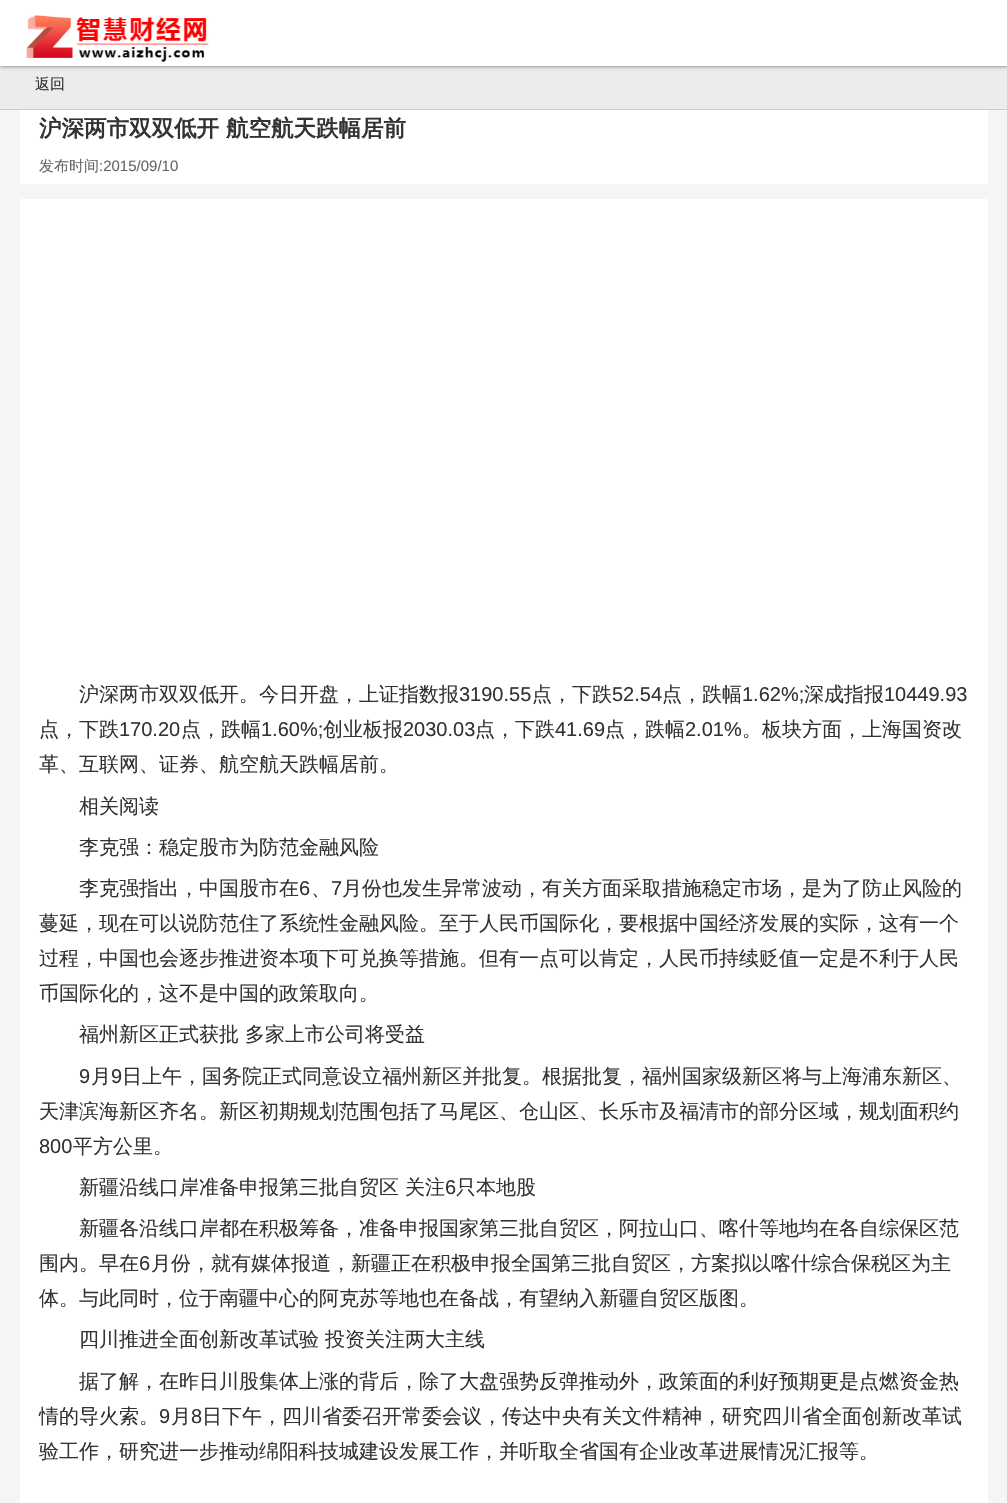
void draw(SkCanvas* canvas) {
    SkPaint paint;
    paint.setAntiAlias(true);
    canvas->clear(0xFFF5F5F5);
    paint.setColor(0xFFECECEC);
    canvas->drawRect(SkRect::MakeXYWH(0, 66, 1007, 43), paint);
    paint.setColor(0xFF666666);
    paint.setMaskFilter(SkMaskFilter::MakeBlur(kNormal_SkBlurStyle, 2));
    canvas->drawRect(SkRect::MakeXYWH(0, 0, 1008, 66), paint);
    paint.setMaskFilter(nullptr);
    paint.setColor(0xFFFFFFFF);
    canvas->drawRect(SkRect::MakeXYWH(0, 0, 1007, 66), paint);
    canvas->drawImageRect(SkImages::DeferredFromEncodedData(SkData::MakeFromFileName("img1.png")), SkRect::MakeXYWH(26, 15, 183, 47), SkSamplingOptions());
    paint.setColor(0xFFCCCCCC);
    canvas->drawRect(SkRect::MakeXYWH(0, 109, 1007, 1), paint);
    SkFont font1(fontMgr->matchFamilyStyle("WenQuanYi Zen Hei", SkFontStyle(500, SkFontStyle::kNormal_Width, SkFontStyle::kUpright_Slant)), 15);
    font1.setSubpixel(true);
    paint.setColor(0xFF333333);
    canvas->drawString("返回", 35, 89, font1, paint);
    paint.setColor(0xFFFFFFFF);
    canvas->drawRect(SkRect::MakeXYWH(20, 110, 968, 74), paint);
    SkFont font2(fontMgr->matchFamilyStyle("WenQuanYi Zen Hei", SkFontStyle::Bold()), 22.5f);
    font2.setSubpixel(true);
    paint.setColor(0xFF333333);
    canvas->drawString("沪深两市双双低开", 39, 136, font2, paint);
    canvas->drawString("航空航天跌幅居前", 226, 136, font2, paint);
    paint.setColor(0xFF666666);
    canvas->drawString("发布时间", 39, 171, font1, paint);
    SkFont font3(fontMgr->matchFamilyStyle("Liberation Sans", SkFontStyle::Normal()), 15);
    font3.setSubpixel(true);
    canvas->drawString(":2015/09/10", 99, 171, font3, paint);
    paint.setColor(0xFFFFFFFF);
    canvas->drawRect(SkRect::MakeXYWH(20, 199, 968, 1304), paint);
    SkFont font4(fontMgr->matchFamilyStyle("WenQuanYi Zen Hei", SkFontStyle(500, SkFontStyle::kNormal_Width, SkFontStyle::kUpright_Slant)), 20);
    font4.setSubpixel(true);
    paint.setColor(0xFF333333);
    canvas->drawString("沪深两市双双低开。今日开盘，上证指数报", 79, 701, font4, paint);
    SkFont font5(fontMgr->matchFamilyStyle("Liberation Sans", SkFontStyle::Normal()), 20);
    font5.setSubpixel(true);
    canvas->drawString("3190.55", 459, 701, font5, paint);
    canvas->drawString("点，下跌", 532, 701, font4, paint);
    canvas->drawString("52.54", 612, 701, font5, paint);
    canvas->drawString("点，跌幅", 662, 701, font4, paint);
    canvas->drawString("1.62%;", 742, 701, font5, paint);
    canvas->drawString("深成指报", 804, 701, font4, paint);
    canvas->drawString("10449.93", 884, 701, font5, paint);
    canvas->drawString("点，下跌", 39, 736, font4, paint);
    canvas->drawString("170.20", 119, 736, font5, paint);
    canvas->drawString("点，跌幅", 181, 736, font4, paint);
    canvas->drawString("1.60%;", 261, 736, font5, paint);
    canvas->drawString("创业板报", 323, 736, font4, paint);
    canvas->drawString("2030.03", 403, 736, font5, paint);
    canvas->drawString("点，下跌", 475, 736, font4, paint);
    canvas->drawString("41.69", 555, 736, font5, paint);
    canvas->drawString("点，跌幅", 605, 736, font4, paint);
    canvas->drawString("2.01%", 685, 736, font5, paint);
    canvas->drawString("。板块方面，上海国资改", 742, 736, font4, paint);
    canvas->drawString("革、互联网、证券、航空航天跌幅居前。", 39, 771, font4, paint);
    canvas->drawString("相关阅读", 79, 813, font4, paint);
    canvas->drawString("李克强：稳定股市为防范金融风险", 79, 854, font4, paint);
    canvas->drawString("李克强指出，中国股市在", 79, 895, font4, paint);
    canvas->drawString("6", 299, 895, font5, paint);
    canvas->drawString("7", 331, 895, font5, paint);
    canvas->drawString("月份也发生异常波动，有关方面采取措施稳定市场，是为了防止风险的", 342, 895, font4, paint);
    canvas->drawString("、", 311, 895, font4, paint);
    canvas->drawString("蔓延，现在可以说防范住了系统性金融风险。至于人民币国际化，要根据中国经济发展的实际，这有一个", 39, 930, font4, paint);
    canvas->drawString("过程，中国也会逐步推进资本项下可兑换等措施。但有一点可以肯定，人民币持续贬值一定是不利于人民", 39, 965, font4, paint);
    canvas->drawString("币国际化的，这不是中国的政策取向。", 39, 1000, font4, paint);
    canvas->drawString("福州新区正式获批 多家上市公司将受益", 79, 1041, font4, paint);
    canvas->drawString("9", 79, 1083, font5, paint);
    canvas->drawString("月", 91, 1083, font4, paint);
    canvas->drawString("9", 111, 1083, font5, paint);
    canvas->drawString("日上午，国务院正式同意设立福州新区并批复。根据批复，福州国家级新区将与上海浦东新区、", 122, 1083, font4, paint);
    canvas->drawString("天津滨海新区齐名。新区初期规划范围包括了马尾区、仓山区、长乐市及福清市的部分区域，规划面积约", 39, 1118, font4, paint);
    canvas->drawString("800", 39, 1153, font5, paint);
    canvas->drawString("平方公里。", 73, 1153, font4, paint);
    canvas->drawString("新疆沿线口岸准备申报第三批自贸区 关注", 79, 1194, font4, paint);
    canvas->drawString("6", 445, 1194, font5, paint);
    canvas->drawString("只本地股", 456, 1194, font4, paint);
    canvas->drawString("新疆各沿线口岸都在积极筹备，准备申报国家第三批自贸区，阿拉山口、喀什等地均在各自综保区范", 79, 1235, font4, paint);
    canvas->drawString("围内。早在", 39, 1270, font4, paint);
    canvas->drawString("6", 139, 1270, font5, paint);
    canvas->drawString("月份，就有媒体报道，新疆正在积极申报全国第三批自贸区，方案拟以喀什综合保税区为主", 151, 1270, font4, paint);
    canvas->drawString("体。与此同时，位于南疆中心的阿克苏等地也在备战，有望纳入新疆自贸区版图。", 39, 1305, font4, paint);
    canvas->drawString("四川推进全面创新改革试验 投资关注两大主线", 79, 1346, font4, paint);
    canvas->drawString("据了解，在昨日川股集体上涨的背后，除了大盘强势反弹推动外，政策面的利好预期更是点燃资金热", 79, 1388, font4, paint);
    canvas->drawString("情的导火索。", 39, 1423, font4, paint);
    canvas->drawString("9", 159, 1423, font5, paint);
    canvas->drawString("月", 171, 1423, font4, paint);
    canvas->drawString("8", 191, 1423, font5, paint);
    canvas->drawString("日下午，四川省委召开常委会议，传达中央有关文件精神，研究四川省全面创新改革试", 202, 1423, font4, paint);
    canvas->drawString("验工作，研究进一步推动绵阳科技城建设发展工作，并听取全省国有企业改革进展情况汇报等。", 39, 1458, font4, paint);
}
